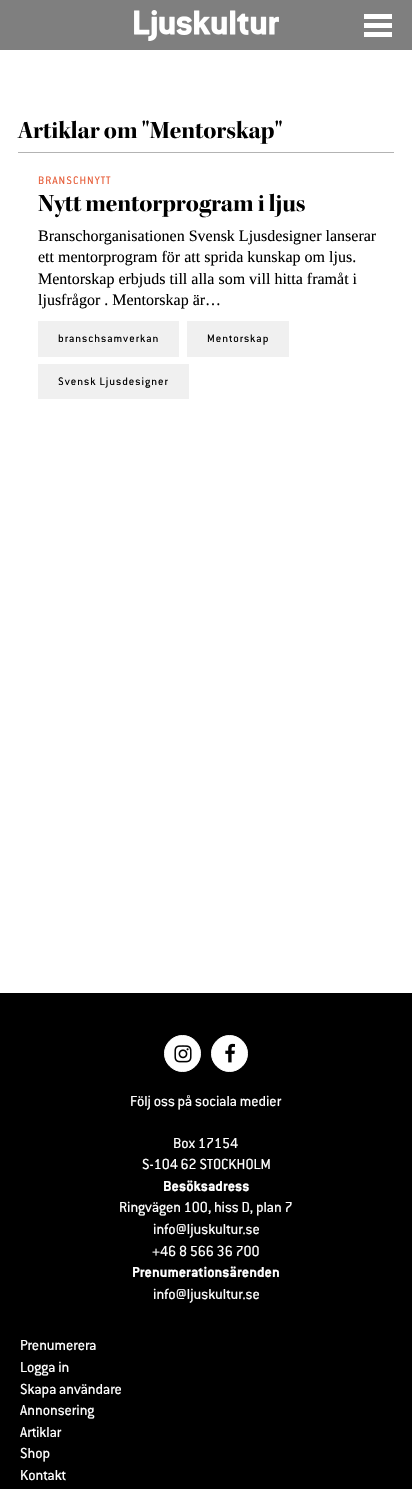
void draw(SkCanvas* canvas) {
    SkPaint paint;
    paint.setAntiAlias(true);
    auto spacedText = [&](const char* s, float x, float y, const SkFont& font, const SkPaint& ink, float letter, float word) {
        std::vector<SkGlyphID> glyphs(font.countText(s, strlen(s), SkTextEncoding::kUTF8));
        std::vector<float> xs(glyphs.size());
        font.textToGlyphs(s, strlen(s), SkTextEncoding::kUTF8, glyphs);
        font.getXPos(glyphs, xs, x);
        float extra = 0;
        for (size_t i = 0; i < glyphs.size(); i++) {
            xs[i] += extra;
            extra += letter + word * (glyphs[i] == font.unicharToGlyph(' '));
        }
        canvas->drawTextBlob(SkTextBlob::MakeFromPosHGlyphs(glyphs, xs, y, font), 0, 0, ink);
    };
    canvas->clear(0xFFFFFFFF);
    paint.setColor(0xFF7F7F7F);
    canvas->drawRect(SkRect::MakeXYWH(0, 0, 412, 50), paint);
    canvas->drawImageRect(SkImages::DeferredFromEncodedData(SkData::MakeFromFileName("img1.png")), SkRect::MakeXYWH(134, 10, 145, 31), SkSamplingOptions());
    paint.setColor(0xFFFFFFFF);
    canvas->drawRect(SkRect::MakeXYWH(364, 14, 28, 5), paint);
    canvas->drawRect(SkRect::MakeXYWH(364, 23, 28, 5), paint);
    canvas->drawRect(SkRect::MakeXYWH(364, 32, 28, 5), paint);
    SkFont font1(fontMgr->matchFamilyStyle("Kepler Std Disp", SkFontStyle::Bold()), 25);
    font1.setSubpixel(true);
    paint.setColor(0xFF000000);
    canvas->drawString("Artiklar om \"Mentorskap\"", 18, 138, font1, paint);
    paint.setColor(0xFFB3B3B3);
    canvas->drawRect(SkRect::MakeXYWH(18, 152, 376, 1), paint);
    SkFont font2(fontMgr->matchFamilyStyle("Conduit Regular", SkFontStyle::Normal()), 12);
    font2.setSubpixel(true);
    paint.setColor(0xFFE75F3B);
    spacedText("BRANSCHNYTT", 38, 184, font2, paint, 1, 0);
    paint.setColor(0xFF000000);
    canvas->drawString("Nytt mentorprogram i ljus", 38, 211, font1, paint);
    SkFont font3(fontMgr->matchFamilyStyle("Liberation Serif", SkFontStyle::Normal()), 16);
    font3.setSubpixel(true);
    canvas->drawString("Branschorganisationen Svensk Ljusdesigner lanserar", 38, 241, font3, paint);
    canvas->drawString("ett mentorprogram för att sprida kunskap om ljus.", 38, 262, font3, paint);
    canvas->drawString("Mentorskap erbjuds till alla som vill hitta framåt i", 38, 284, font3, paint);
    canvas->drawString("ljusfrågor . Mentorskap är…", 38, 305, font3, paint);
    paint.setColor(0xFFF0F0F0);
    canvas->drawRect(SkRect::MakeXYWH(38, 321, 141, 36), paint);
    paint.setColor(0xFF000000);
    spacedText("branschsamverkan", 58, 342, font2, paint, 1, 0);
    paint.setColor(0xFFF0F0F0);
    canvas->drawRect(SkRect::MakeXYWH(187, 321, 102, 36), paint);
    paint.setColor(0xFF000000);
    spacedText("Mentorskap", 207, 342, font2, paint, 1, 0);
    paint.setColor(0xFFF0F0F0);
    canvas->drawRect(SkRect::MakeXYWH(38, 364, 151, 35), paint);
    paint.setColor(0xFF000000);
    spacedText("Svensk Ljusdesigner", 58, 385, font2, paint, 1, 0);
    canvas->drawRect(SkRect::MakeXYWH(0, 993, 412, 496), paint);
    paint.setColor(0xFFFFFFFF);
    canvas->drawCircle(182.5f, 1053.5f, 18, paint);
    paint.setStyle(SkPaint::kStroke_Style);
    paint.setStrokeWidth(1);
    canvas->drawCircle(182.5f, 1053.5f, 18, paint);
    canvas->drawImageRect(SkImages::DeferredFromEncodedData(SkData::MakeFromFileName("img2.png")), SkRect::MakeXYWH(174, 1045, 18, 18), SkSamplingOptions());
    paint.setStyle(SkPaint::kFill_Style);
    canvas->drawCircle(229.5f, 1053.5f, 18, paint);
    paint.setStyle(SkPaint::kStroke_Style);
    canvas->drawCircle(229.5f, 1053.5f, 18, paint);
    canvas->drawImageRect(SkImages::DeferredFromEncodedData(SkData::MakeFromFileName("img3.png")), SkRect::MakeXYWH(225, 1043, 10, 20), SkSamplingOptions());
    SkFont font4(fontMgr->matchFamilyStyle("Conduit Regular", SkFontStyle::Normal()), 16);
    font4.setSubpixel(true);
    paint.setStyle(SkPaint::kFill_Style);
    canvas->drawString("Följ oss på sociala medier", 130, 1106, font4, paint);
    canvas->drawString("Box 17154", 173, 1148, font4, paint);
    canvas->drawString("S-104 62 STOCKHOLM", 142, 1169, font4, paint);
    SkFont font5(fontMgr->matchFamilyStyle("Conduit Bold", SkFontStyle::Bold()), 16);
    font5.setSubpixel(true);
    canvas->drawString("Besöksadress", 163, 1191, font5, paint);
    canvas->drawString("Ringvägen 100, hiss D, plan 7", 119, 1212, font4, paint);
    canvas->drawString("info@ljuskultur.se", 153, 1234, font4, paint);
    canvas->drawString("+46 8 566 36 700", 152, 1256, font4, paint);
    canvas->drawString("Prenumerationsärenden", 132, 1277, font5, paint);
    canvas->drawString("info@ljuskultur.se", 153, 1299, font4, paint);
    canvas->drawString("Prenumerera", 20, 1350, font4, paint);
    canvas->drawString("Logga in", 20, 1372, font4, paint);
    canvas->drawString("Skapa användare", 20, 1394, font4, paint);
    canvas->drawString("Annonsering", 20, 1415, font4, paint);
    canvas->drawString("Artiklar", 20, 1437, font4, paint);
    canvas->drawString("Shop", 20, 1458, font4, paint);
    canvas->drawString("Kontakt", 20, 1480, font4, paint);
}
